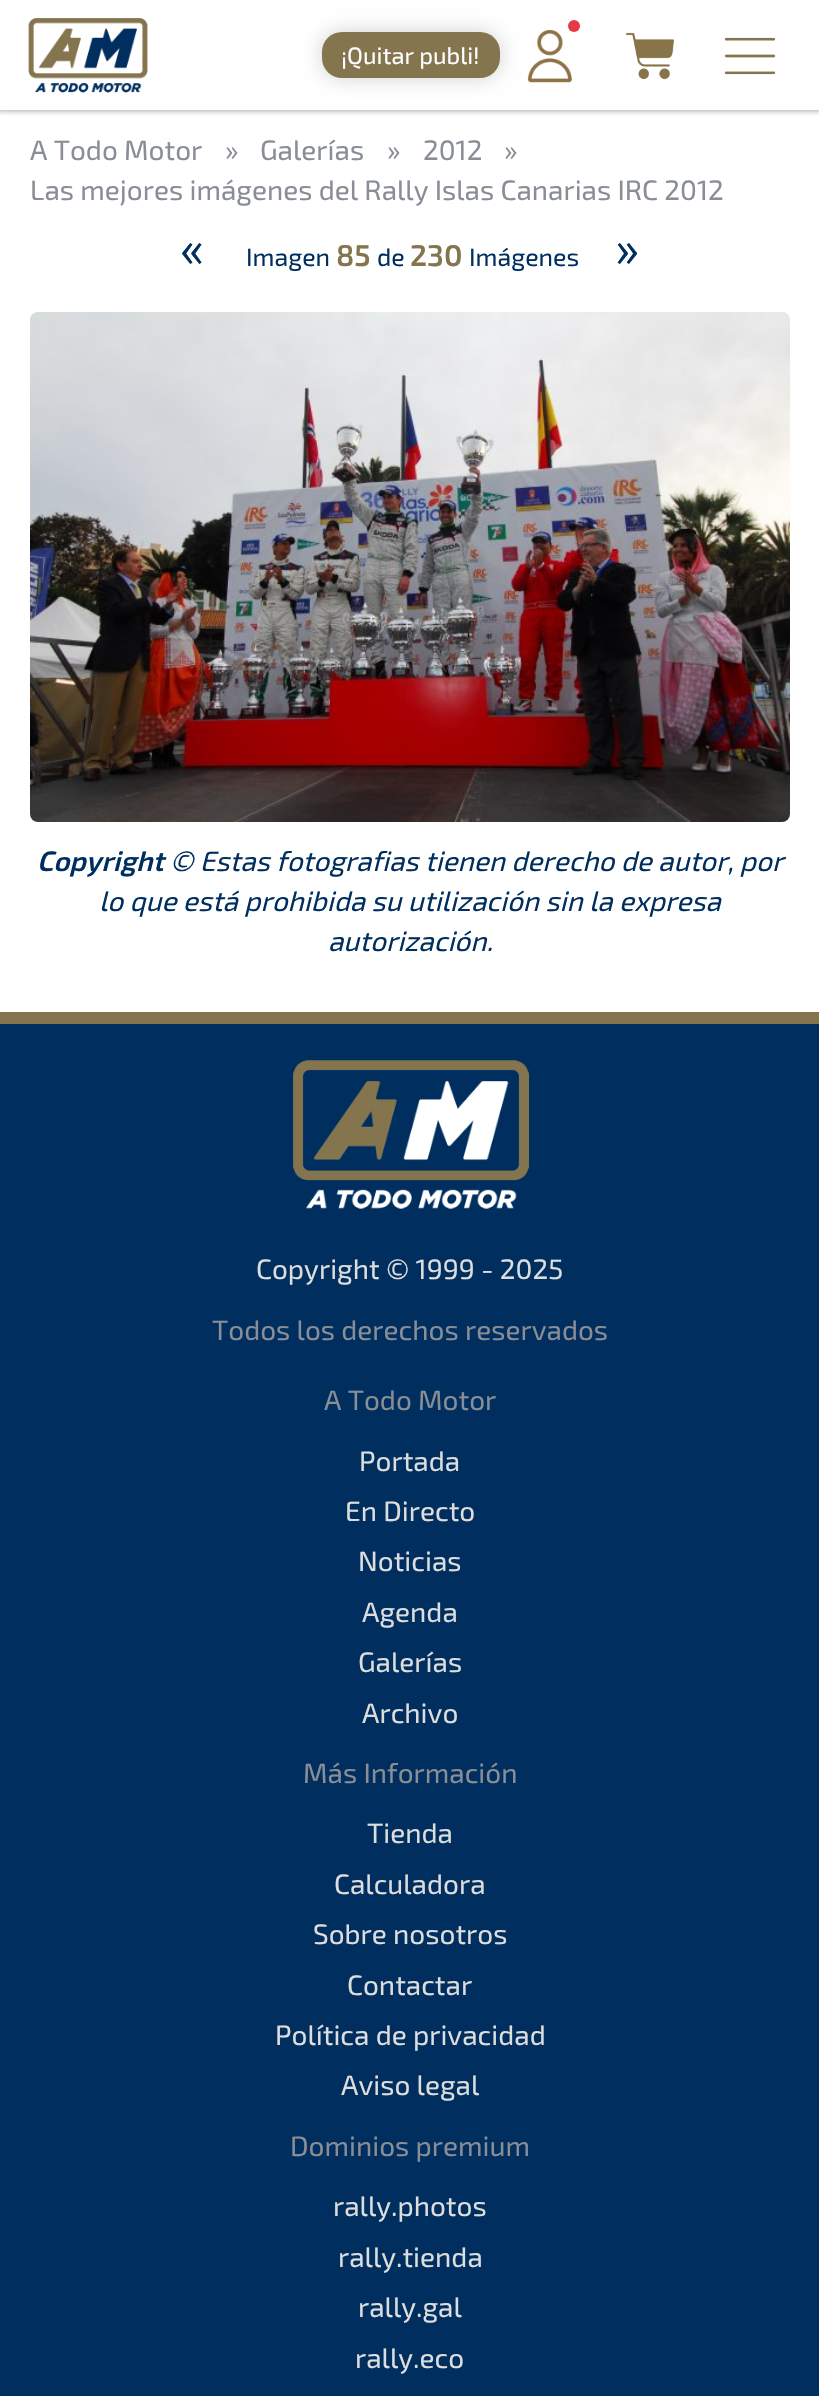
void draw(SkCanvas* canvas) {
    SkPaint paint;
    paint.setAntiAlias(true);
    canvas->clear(0xFFFFFFFF);
    canvas->save();
    canvas->clipRect(SkRect::MakeXYWH(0, 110, 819, 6));
    paint.setColor(0xFFC0C0C0);
    paint.setMaskFilter(SkMaskFilter::MakeBlur(kNormal_SkBlurStyle, 2));
    canvas->drawRect(SkRect::MakeXYWH(-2, -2, 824, 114), paint);
    paint.setMaskFilter(nullptr);
    canvas->restore();
    canvas->drawImageRect(SkImages::DeferredFromEncodedData(SkData::MakeFromFileName("img1.png")), SkRect::MakeXYWH(28, 18, 120, 75), SkSamplingOptions());
    paint.setColor(0x2E000000);
    paint.setMaskFilter(SkMaskFilter::MakeBlur(kNormal_SkBlurStyle, 10));
    canvas->drawRoundRect(SkRect::MakeXYWH(322, 32, 178, 46), 20, 20, paint);
    paint.setMaskFilter(nullptr);
    paint.setColor(0xFF84754E);
    canvas->drawRoundRect(SkRect::MakeXYWH(322, 32, 178, 46), 20, 20, paint);
    SkFont font1(fontMgr->matchFamilyStyle("Exo 2", SkFontStyle::Normal()), 23.75f);
    font1.setSubpixel(true);
    paint.setColor(0xFFFFFFFF);
    canvas->drawString("¡Quitar publi!", 341, 64, font1, paint);
    canvas->drawImageRect(SkImages::DeferredFromEncodedData(SkData::MakeFromFileName("img2.png")), SkRect::MakeXYWH(527, 29, 45, 54), SkSamplingOptions());
    paint.setColor(0xFFE63946);
    canvas->drawCircle(574, 26, 6, paint);
    canvas->drawImageRect(SkImages::DeferredFromEncodedData(SkData::MakeFromFileName("img3.png")), SkRect::MakeXYWH(626, 32, 48, 48), SkSamplingOptions());
    canvas->drawImageRect(SkImages::DeferredFromEncodedData(SkData::MakeFromFileName("img4.png")), SkRect::MakeXYWH(724, 37, 52, 38), SkSamplingOptions());
    SkFont font2(fontMgr->matchFamilyStyle("Exo 2", SkFontStyle::Normal()), 28);
    font2.setSubpixel(true);
    paint.setColor(0xFF898D96);
    canvas->drawString("A Todo Motor", 30, 160, font2, paint);
    canvas->drawString("»", 225, 160, font2, paint);
    canvas->drawString("Galerías", 260, 160, font2, paint);
    canvas->drawString("»", 387, 160, font2, paint);
    canvas->drawString("2012", 423, 160, font2, paint);
    canvas->drawString("»", 504, 160, font2, paint);
    canvas->drawString("Las mejores imágenes del Rally Islas Canarias IRC 2012", 30, 200, font2, paint);
    SkFont font3(fontMgr->matchFamilyStyle("Exo 2", SkFontStyle::Normal()), 50);
    font3.setSubpixel(true);
    paint.setColor(0xFF002F5F);
    canvas->drawString("«", 180, 266, font3, paint);
    SkFont font4(fontMgr->matchFamilyStyle("Exo 2", SkFontStyle::Normal()), 25);
    font4.setSubpixel(true);
    canvas->drawString("Imagen", 246, 266, font4, paint);
    SkFont font5(fontMgr->matchFamilyStyle("Exo 2", SkFontStyle(600, SkFontStyle::kNormal_Width, SkFontStyle::kUpright_Slant)), 30);
    font5.setSubpixel(true);
    paint.setColor(0xFF84754E);
    canvas->drawString("85", 336, 266, font5, paint);
    paint.setColor(0xFF002F5F);
    canvas->drawString("de", 377, 266, font4, paint);
    paint.setColor(0xFF84754E);
    canvas->drawString("230", 410, 266, font5, paint);
    paint.setColor(0xFF002F5F);
    canvas->drawString("Imágenes", 469, 266, font4, paint);
    canvas->drawString("»", 615, 266, font3, paint);
    canvas->drawImageRect(SkImages::DeferredFromEncodedData(SkData::MakeFromFileName("img5.png")), SkRect::MakeXYWH(30, 312, 760, 510), SkSamplingOptions());
    SkFont font6(fontMgr->matchFamilyStyle("Exo 2", SkFontStyle(600, SkFontStyle::kNormal_Width, SkFontStyle::kItalic_Slant)), 28);
    font6.setSubpixel(true);
    canvas->drawString("Copyright", 37, 871, font6, paint);
    SkFont font7(fontMgr->matchFamilyStyle("Exo 2", SkFontStyle::Italic()), 28);
    font7.setSubpixel(true);
    canvas->drawString("© Estas fotografias tienen derecho de autor, por", 170, 871, font7, paint);
    canvas->drawString("lo que está prohibida su utilización sin la expresa", 99, 911, font7, paint);
    canvas->drawString("autorización.", 328, 951, font7, paint);
    canvas->drawRect(SkRect::MakeXYWH(0, 1024, 819, 1372), paint);
    paint.setColor(0xFF84754E);
    canvas->drawRect(SkRect::MakeXYWH(0, 1012, 819, 12), paint);
    canvas->drawImageRect(SkImages::DeferredFromEncodedData(SkData::MakeFromFileName("img6.png")), SkRect::MakeXYWH(293, 1060, 236, 149), SkSamplingOptions());
    paint.setColor(0xFFDDDDDD);
    canvas->drawString("Copyright © 1999 - 2025", 256, 1279, font2, paint);
    paint.setColor(0xFF898D96);
    canvas->drawString("Todos los derechos reservados", 212, 1340, font2, paint);
    canvas->drawString("A Todo Motor", 324, 1410, font2, paint);
    paint.setColor(0xFFDDDDDD);
    canvas->drawString("Portada", 359, 1471, font2, paint);
    canvas->drawString("En Directo", 345, 1521, font2, paint);
    canvas->drawString("Noticias", 358, 1571, font2, paint);
    canvas->drawString("Agenda", 362, 1622, font2, paint);
    canvas->drawString("Galerías", 358, 1672, font2, paint);
    canvas->drawString("Archivo", 362, 1723, font2, paint);
    paint.setColor(0xFF898D96);
    canvas->drawString("Más Información", 303, 1783, font2, paint);
    paint.setColor(0xFFDDDDDD);
    canvas->drawString("Tienda", 367, 1843, font2, paint);
    canvas->drawString("Calculadora", 334, 1894, font2, paint);
    canvas->drawString("Sobre nosotros", 313, 1944, font2, paint);
    canvas->drawString("Contactar", 347, 1995, font2, paint);
    canvas->drawString("Política de privacidad", 275, 2045, font2, paint);
    canvas->drawString("Aviso legal", 341, 2095, font2, paint);
    paint.setColor(0xFF898D96);
    canvas->drawString("Dominios premium", 290, 2156, font2, paint);
    paint.setColor(0xFFDDDDDD);
    canvas->drawString("rally.photos", 333, 2216, font2, paint);
    canvas->drawString("rally.tienda", 338, 2267, font2, paint);
    canvas->drawString("rally.gal", 358, 2317, font2, paint);
    canvas->drawString("rally.eco", 355, 2368, font2, paint);
}
